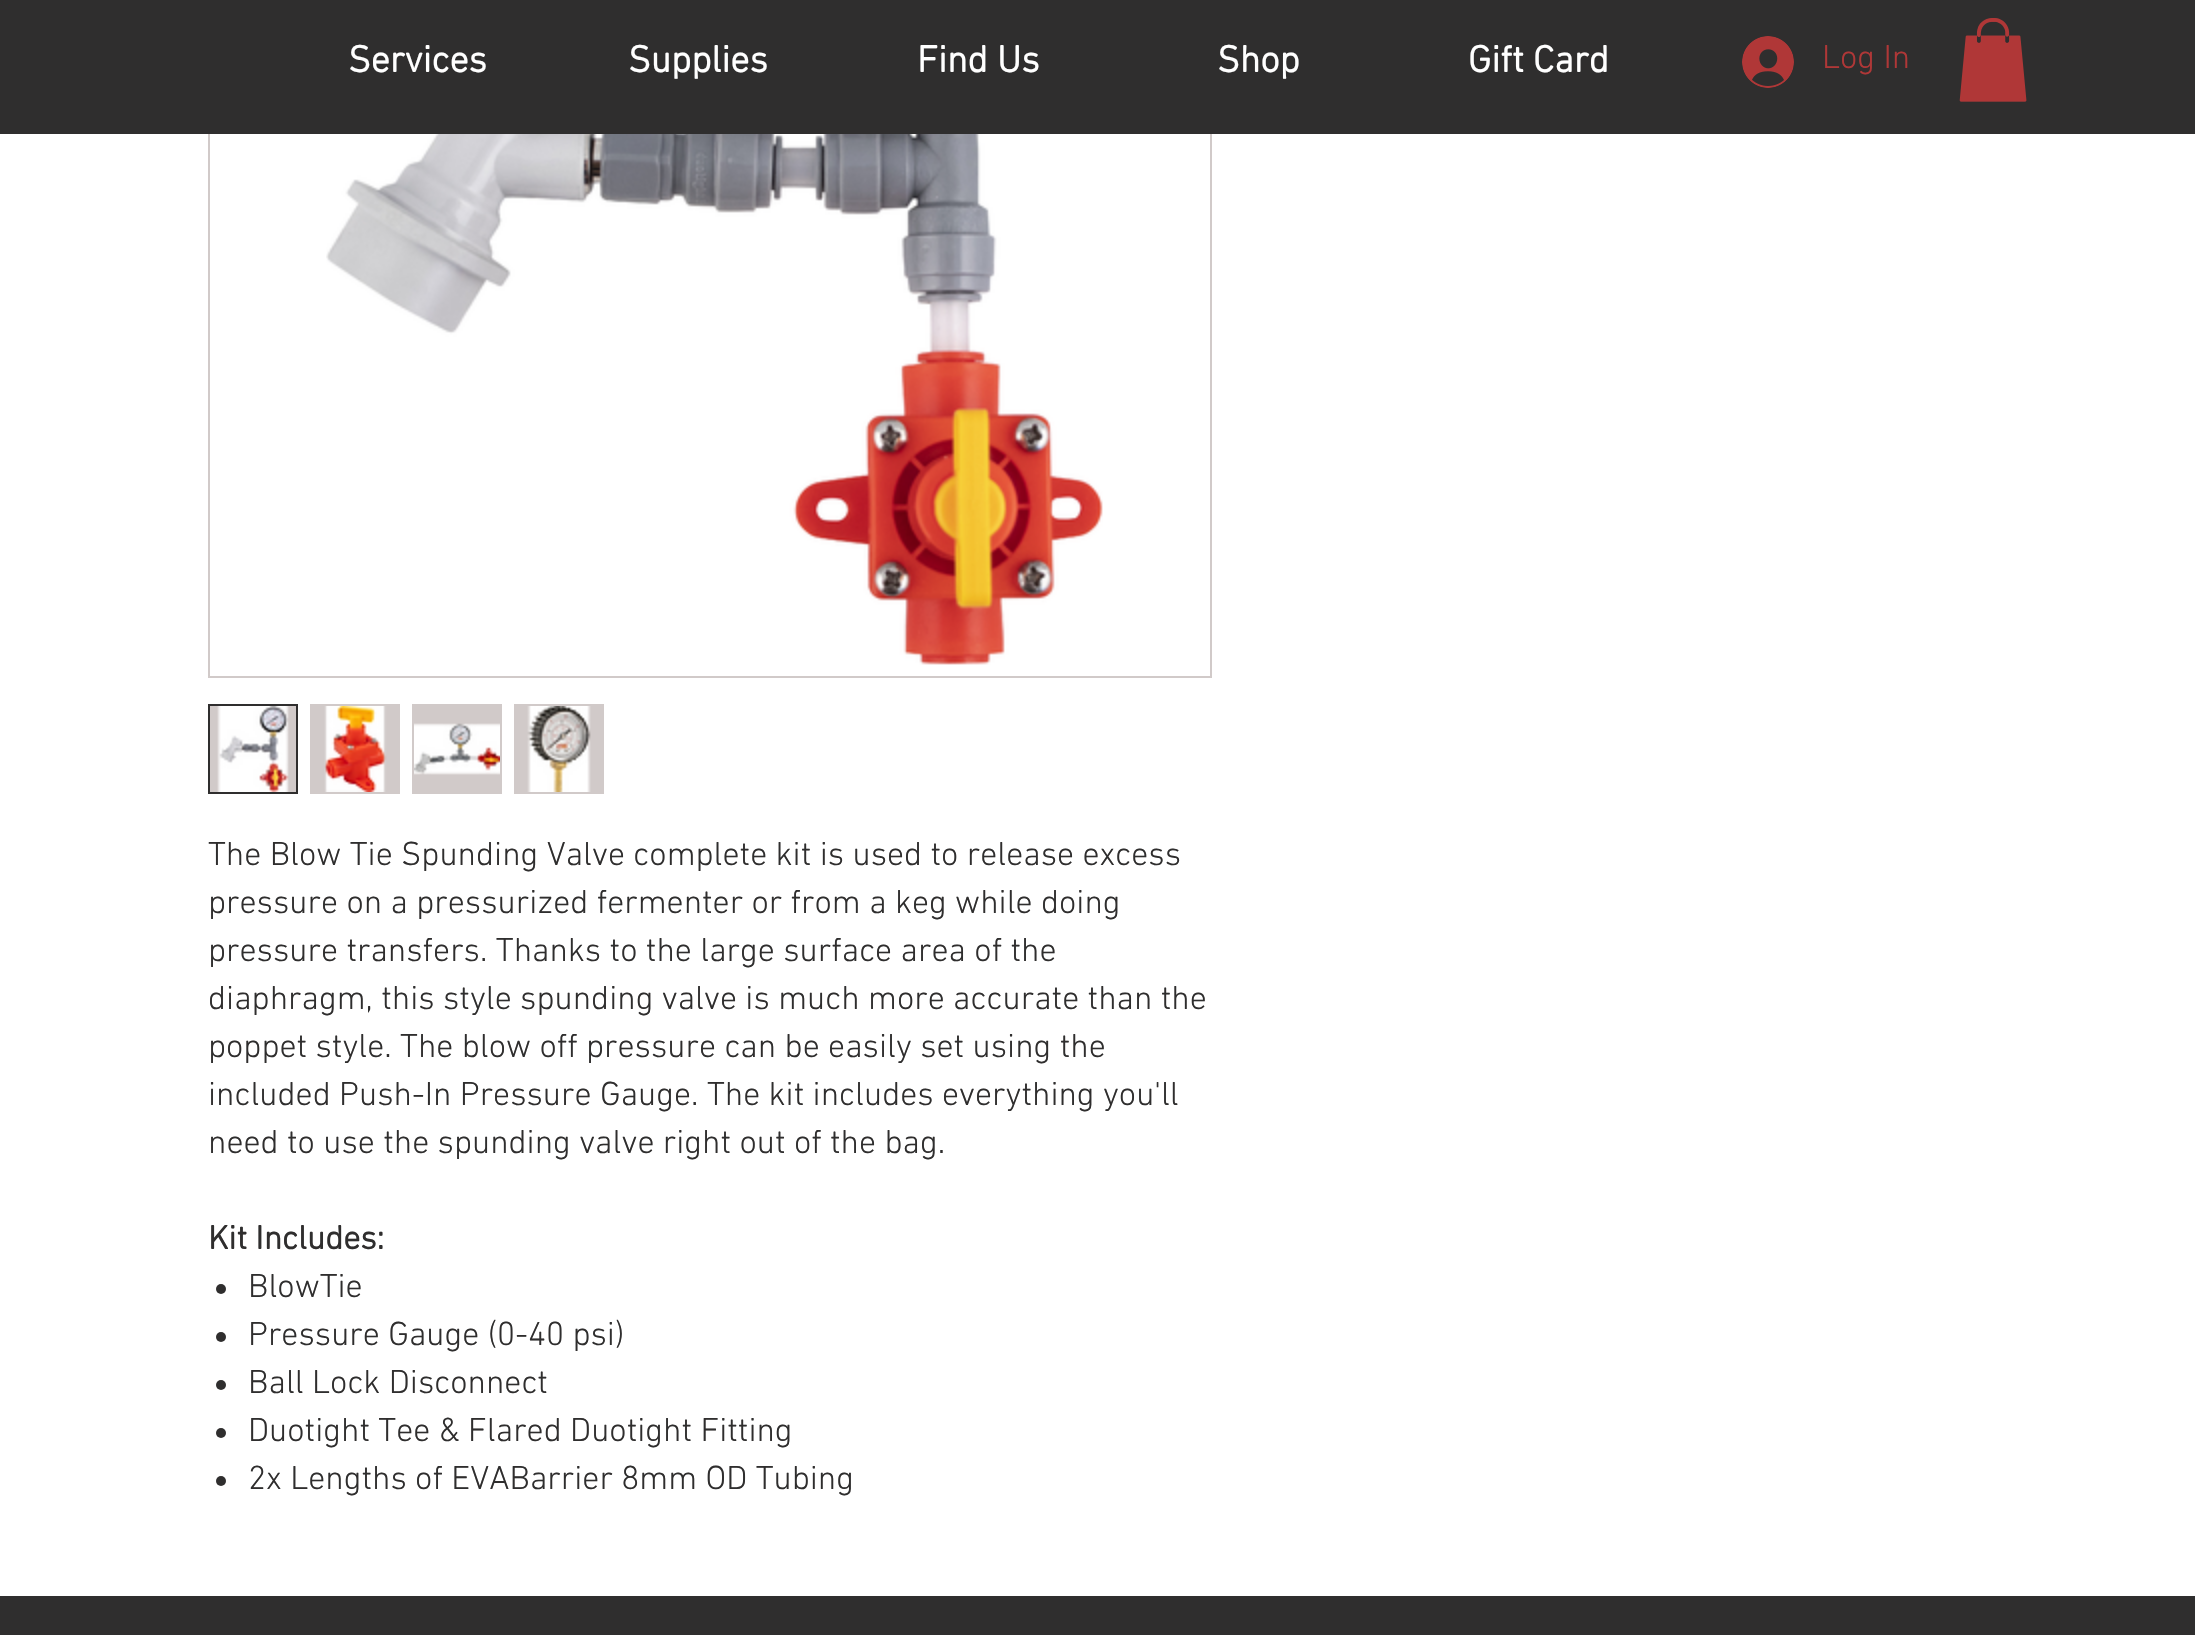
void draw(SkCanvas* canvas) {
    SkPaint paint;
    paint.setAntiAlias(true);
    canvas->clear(0xFFFFFFFF);
    paint.setStyle(SkPaint::kStroke_Style);
    paint.setStrokeWidth(2);
    paint.setColor(0xFFD1CAC9);
    canvas->drawRect(SkRect::MakeXYWH(209, -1, 1002, 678), paint);
    paint.setStyle(SkPaint::kFill_Style);
    paint.setColor(0xFF2F2E2E);
    canvas->drawRect(SkRect::MakeXYWH(0, 0, 2195, 134), paint);
    SkFont font1(fontMgr->matchFamilyStyle("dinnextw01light", SkFontStyle::Bold()), 38);
    font1.setSubpixel(true);
    paint.setColor(0xFFFFFFFF);
    canvas->drawString("Services", 348, 72, font1, paint);
    canvas->drawString("Supplies", 628, 72, font1, paint);
    canvas->drawString("Find Us", 917, 72, font1, paint);
    canvas->drawString("Shop", 1217, 72, font1, paint);
    canvas->drawString("Gift Card", 1468, 72, font1, paint);
    canvas->drawImageRect(SkImages::DeferredFromEncodedData(SkData::MakeFromFileName("img1.png")), SkRect::MakeXYWH(1742, 36, 52, 52), SkSamplingOptions());
    SkFont font2(fontMgr->matchFamilyStyle("dinnextw01light", SkFontStyle(300, SkFontStyle::kNormal_Width, SkFontStyle::kUpright_Slant)), 34);
    font2.setSubpixel(true);
    paint.setColor(0xFFB03737);
    canvas->drawString("Log In", 1822, 68, font2, paint);
    canvas->drawImageRect(SkImages::DeferredFromEncodedData(SkData::MakeFromFileName("img2.png")), SkRect::MakeXYWH(1959, 18, 68, 84), SkSamplingOptions());
    canvas->drawImageRect(SkImages::DeferredFromEncodedData(SkData::MakeFromFileName("img3.png")), SkRect::MakeXYWH(326, 134, 777, 531), SkSamplingOptions());
    paint.setColor(0xFFD1CAC9);
    canvas->drawRect(SkRect::MakeXYWH(209, 705, 88, 88), paint);
    paint.setStyle(SkPaint::kStroke_Style);
    paint.setColor(0xFF2F2E2E);
    canvas->drawRect(SkRect::MakeXYWH(209, 705, 88, 88), paint);
    canvas->drawImageRect(SkImages::DeferredFromEncodedData(SkData::MakeFromFileName("img4.png")), SkRect::MakeXYWH(217, 706, 72, 86), SkSamplingOptions());
    paint.setStyle(SkPaint::kFill_Style);
    paint.setColor(0xFFD1CAC9);
    canvas->drawRect(SkRect::MakeXYWH(310, 704, 90, 90), paint);
    canvas->drawImageRect(SkImages::DeferredFromEncodedData(SkData::MakeFromFileName("img5.png")), SkRect::MakeXYWH(324, 706, 63, 86), SkSamplingOptions());
    canvas->drawRect(SkRect::MakeXYWH(412, 704, 90, 90), paint);
    canvas->drawImageRect(SkImages::DeferredFromEncodedData(SkData::MakeFromFileName("img6.png")), SkRect::MakeXYWH(414, 723, 86, 52), SkSamplingOptions());
    canvas->drawRect(SkRect::MakeXYWH(514, 704, 90, 90), paint);
    canvas->drawImageRect(SkImages::DeferredFromEncodedData(SkData::MakeFromFileName("img7.png")), SkRect::MakeXYWH(527, 706, 64, 86), SkSamplingOptions());
    paint.setColor(0xFF2F2E2E);
    canvas->drawString("The Blow Tie Spunding Valve complete kit is used to release excess", 208, 865, font2, paint);
    canvas->drawString("pressure on a pressurized fermenter or from a keg while doing", 208, 913, font2, paint);
    canvas->drawString("pressure transfers. Thanks to the large surface area of the", 208, 961, font2, paint);
    canvas->drawString("diaphragm, this style spunding valve is much more accurate than the", 208, 1009, font2, paint);
    canvas->drawString("poppet style. The blow off pressure can be easily set using the", 208, 1057, font2, paint);
    canvas->drawString("included Push-In Pressure Gauge. The kit includes everything you'll", 208, 1105, font2, paint);
    canvas->drawString("need to use the spunding valve right out of the bag.", 208, 1153, font2, paint);
    SkFont font3(fontMgr->matchFamilyStyle("dinnextw01light", SkFontStyle::Bold()), 34);
    font3.setSubpixel(true);
    canvas->drawString("Kit Includes:", 208, 1249, font3, paint);
    canvas->drawCircle(221, 1289, 5, paint);
    canvas->drawString("BlowTie", 248, 1297, font2, paint);
    canvas->drawCircle(221, 1337, 5, paint);
    canvas->drawString("Pressure Gauge (0-40 psi)", 248, 1345, font2, paint);
    canvas->drawCircle(221, 1385, 5, paint);
    canvas->drawString("Ball Lock Disconnect", 248, 1393, font2, paint);
    canvas->drawCircle(221, 1433, 5, paint);
    canvas->drawString("Duotight Tee & Flared Duotight Fitting", 248, 1441, font2, paint);
    canvas->drawCircle(221, 1481, 5, paint);
    canvas->drawString("2x Lengths of EVABarrier 8mm OD Tubing", 248, 1489, font2, paint);
    canvas->drawRect(SkRect::MakeXYWH(0, 1596, 2195, 39), paint);
}
